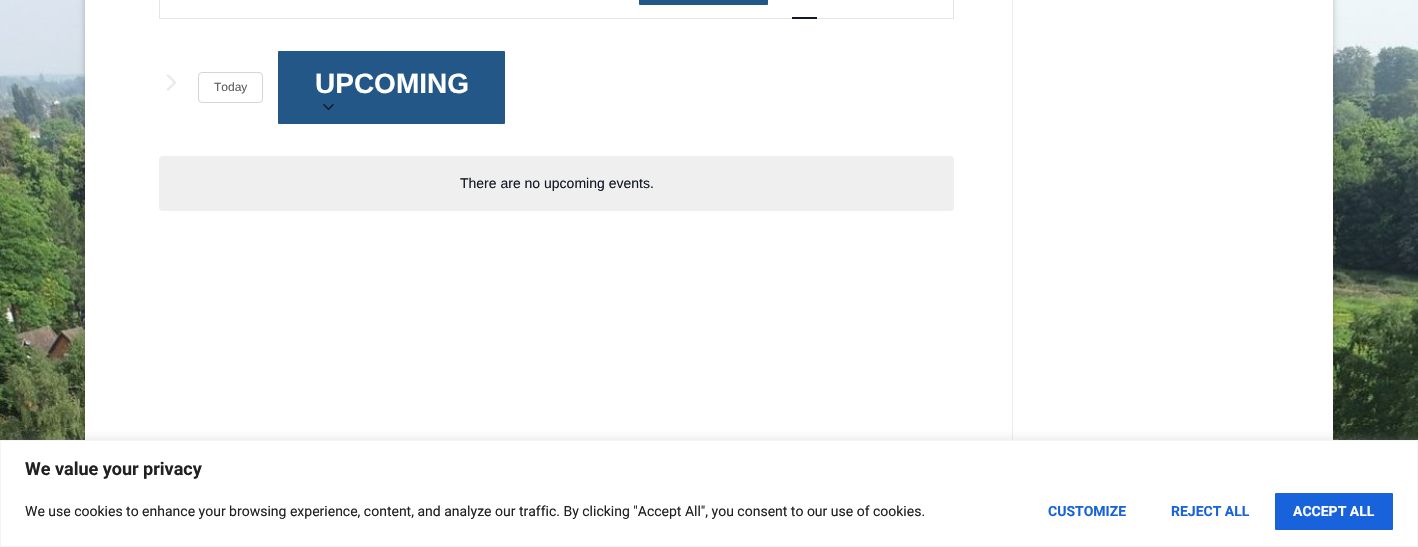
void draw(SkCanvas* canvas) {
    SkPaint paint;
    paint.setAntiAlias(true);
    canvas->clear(0xFFFFFFFF);
    canvas->drawImageRect(SkImages::DeferredFromEncodedData(SkData::MakeFromFileName("img1.png")), SkRect::MakeXYWH(0, 0, 1418, 440), SkSamplingOptions());
    paint.setColor(0x3B000000);
    paint.setMaskFilter(SkMaskFilter::MakeBlur(kNormal_SkBlurStyle, 3));
    canvas->drawRect(SkRect::MakeXYWH(85, -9, 1248, 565), paint);
    paint.setMaskFilter(nullptr);
    paint.setColor(0xFFFFFFFF);
    canvas->drawRect(SkRect::MakeXYWH(85, 0, 1248, 440), paint);
    paint.setColor(0xFFEAECEE);
    canvas->drawRect(SkRect::MakeXYWH(1012, 0, 1, 440), paint);
    paint.setStyle(SkPaint::kStroke_Style);
    paint.setStrokeWidth(1);
    paint.setColor(0xFFE4E4E4);
    canvas->drawRect(SkRect::MakeXYWH(159.5f, -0.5f, 794, 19), paint);
    paint.setStyle(SkPaint::kFill_Style);
    paint.setColor(0xFF235787);
    canvas->drawRoundRect(SkRect::MakeXYWH(639, -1, 129, 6), 1, 1, paint);
    paint.setColor(0xFF141827);
    canvas->drawRect(SkRect::MakeXYWH(792, 17, 25, 2), paint);
    canvas->drawImageRect(SkImages::DeferredFromEncodedData(SkData::MakeFromFileName("img2.png")), SkRect::MakeXYWH(166, 74, 11, 17), SkSamplingOptions());
    paint.setStyle(SkPaint::kStroke_Style);
    paint.setColor(0xFFD5D5D5);
    canvas->drawRoundRect(SkRect::MakeXYWH(198.5f, 72.5f, 64, 30), 3.5f, 3.5f, paint);
    SkFont font1(fontMgr->matchFamilyStyle("Liberation Sans", SkFontStyle::Normal()), 12);
    font1.setSubpixel(true);
    paint.setStyle(SkPaint::kFill_Style);
    paint.setColor(0xFF5D5D5D);
    canvas->drawString("Today", 214, 91, font1, paint);
    paint.setColor(0xFF235787);
    canvas->drawRoundRect(SkRect::MakeXYWH(278, 51, 227, 73), 1, 1, paint);
    SkFont font2(fontMgr->matchFamilyStyle("Liberation Sans", SkFontStyle::Bold()), 28);
    font2.setSubpixel(true);
    paint.setColor(0xFFFFFFFF);
    canvas->drawString("UPCOMING", 315, 93, font2, paint);
    canvas->drawImageRect(SkImages::DeferredFromEncodedData(SkData::MakeFromFileName("img3.png")), SkRect::MakeXYWH(323, 104, 11, 7), SkSamplingOptions());
    paint.setColor(0xFFEFEFF0);
    canvas->drawRoundRect(SkRect::MakeXYWH(159, 156, 795, 55), 4, 4, paint);
    SkFont font3(fontMgr->matchFamilyStyle("Liberation Sans", SkFontStyle::Normal()), 14);
    font3.setSubpixel(true);
    paint.setColor(0xFF141827);
    canvas->drawString("There are no upcoming events.", 460, 188, font3, paint);
    paint.setColor(0x4DACABAB);
    paint.setMaskFilter(SkMaskFilter::MakeBlur(kNormal_SkBlurStyle, 5));
    canvas->drawRect(SkRect::MakeXYWH(0, 439, 1418, 107), paint);
    paint.setMaskFilter(nullptr);
    paint.setColor(0xFFFFFFFF);
    canvas->drawRect(SkRect::MakeXYWH(0.5f, 440.5f, 1417, 106), paint);
    paint.setStyle(SkPaint::kStroke_Style);
    paint.setColor(0xFFF4F4F4);
    canvas->drawRect(SkRect::MakeXYWH(0.5f, 440.5f, 1417, 106), paint);
    SkFont font4(fontMgr->matchFamilyStyle("Roboto", SkFontStyle::Bold()), 18);
    font4.setSubpixel(true);
    paint.setStyle(SkPaint::kFill_Style);
    paint.setColor(0xFF212121);
    canvas->drawString("We value your privacy", 25, 475, font4, paint);
    SkFont font5(fontMgr->matchFamilyStyle("Roboto", SkFontStyle::Normal()), 14);
    font5.setSubpixel(true);
    canvas->drawString("We use cookies to enhance your browsing experience, content, and analyze our traffic. By clicking \"Accept All\", you consent to our use of cookies.", 25, 516, font5, paint);
    SkFont font6(fontMgr->matchFamilyStyle("Roboto", SkFontStyle::Bold()), 14);
    font6.setSubpixel(true);
    paint.setColor(0xFF1863DC);
    canvas->drawString("CUSTOMIZE", 1048, 516, font6, paint);
    canvas->drawString("REJECT ALL", 1171, 516, font6, paint);
    canvas->drawRoundRect(SkRect::MakeXYWH(1275, 493, 118, 37), 1, 1, paint);
    paint.setColor(0xFFFFFFFF);
    canvas->drawString("ACCEPT ALL", 1293, 516, font6, paint);
}
